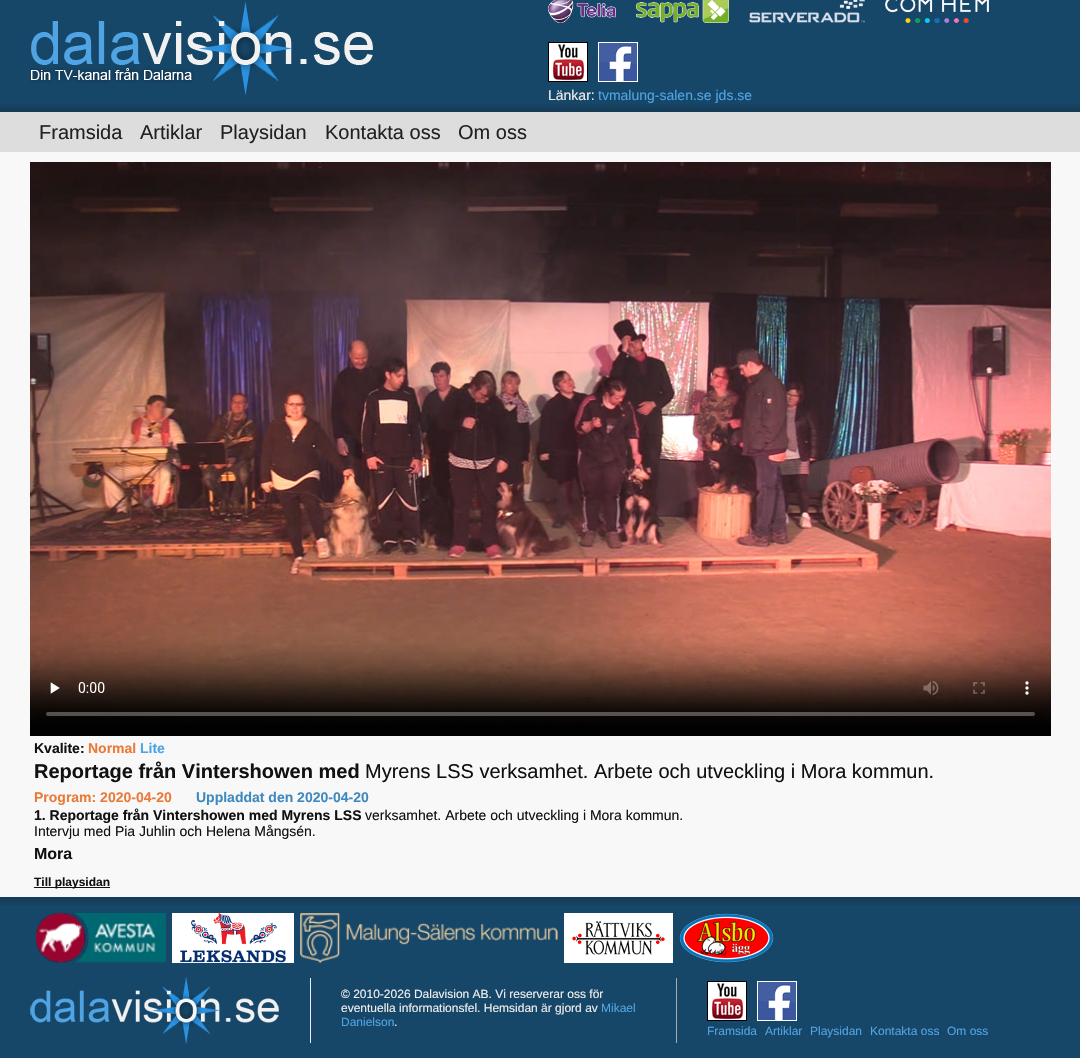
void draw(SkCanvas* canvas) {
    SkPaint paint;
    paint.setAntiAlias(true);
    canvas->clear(0xFF164668);
    canvas->drawImageRect(SkImages::DeferredFromEncodedData(SkData::MakeFromFileName("img1.png")), SkRect::MakeXYWH(30, 2, 343, 93), SkSamplingOptions());
    canvas->drawImageRect(SkImages::DeferredFromEncodedData(SkData::MakeFromFileName("img2.png")), SkRect::MakeXYWH(548, 0, 68, 23), SkSamplingOptions());
    canvas->drawImageRect(SkImages::DeferredFromEncodedData(SkData::MakeFromFileName("img3.png")), SkRect::MakeXYWH(636, 0, 93, 23), SkSamplingOptions());
    canvas->drawImageRect(SkImages::DeferredFromEncodedData(SkData::MakeFromFileName("img4.png")), SkRect::MakeXYWH(749, 0, 116, 23), SkSamplingOptions());
    canvas->drawImageRect(SkImages::DeferredFromEncodedData(SkData::MakeFromFileName("img5.png")), SkRect::MakeXYWH(885, 0, 104, 23), SkSamplingOptions());
    canvas->drawImageRect(SkImages::DeferredFromEncodedData(SkData::MakeFromFileName("img6.png")), SkRect::MakeXYWH(548, 42, 40, 40), SkSamplingOptions());
    canvas->drawImageRect(SkImages::DeferredFromEncodedData(SkData::MakeFromFileName("img7.png")), SkRect::MakeXYWH(598, 42, 40, 40), SkSamplingOptions());
    SkFont font1(fontMgr->matchFamilyStyle("Liberation Sans", SkFontStyle::Normal()), 14);
    font1.setSubpixel(true);
    paint.setColor(0xFFEEEEEE);
    canvas->drawString("Länkar:", 548, 100, font1, paint);
    paint.setColor(0xFF50A4E4);
    canvas->drawString("tvmalung-salen.se jds.se", 598, 100, font1, paint);
    canvas->drawImageRect(SkImages::DeferredFromEncodedData(SkData::MakeFromFileName("img8.png")), SkRect::MakeXYWH(0, 104, 1080, 8), SkSamplingOptions());
    paint.setColor(0xFFDDDDDD);
    canvas->drawRect(SkRect::MakeXYWH(0, 112, 1080, 40), paint);
    SkFont font2(fontMgr->matchFamilyStyle("Liberation Sans", SkFontStyle::Normal()), 20);
    font2.setSubpixel(true);
    paint.setColor(0xFF222222);
    canvas->drawString("Framsida", 39, 139, font2, paint);
    canvas->drawString("Artiklar", 140, 139, font2, paint);
    canvas->drawString("Playsidan", 220, 139, font2, paint);
    canvas->drawString("Kontakta oss", 325, 139, font2, paint);
    canvas->drawString("Om oss", 458, 139, font2, paint);
    paint.setColor(0xFFF8F8F8);
    canvas->drawRect(SkRect::MakeXYWH(0, 152, 1080, 745), paint);
    canvas->drawImageRect(SkImages::DeferredFromEncodedData(SkData::MakeFromFileName("img9.png")), SkRect::MakeXYWH(30, 162, 1021, 574), SkSamplingOptions());
    SkFont font3(fontMgr->matchFamilyStyle("Liberation Sans", SkFontStyle::Bold()), 14);
    font3.setSubpixel(true);
    paint.setColor(0xFF111111);
    canvas->drawString("Kvalite:", 34, 753, font3, paint);
    paint.setColor(0xFFEA7A37);
    canvas->drawString("Normal", 88, 753, font3, paint);
    paint.setColor(0xFF50A4E4);
    canvas->drawString("Lite", 140, 753, font3, paint);
    SkFont font4(fontMgr->matchFamilyStyle("Liberation Sans", SkFontStyle::Bold()), 20);
    font4.setSubpixel(true);
    paint.setColor(0xFF111111);
    canvas->drawString("Reportage från Vintershowen med", 34, 778, font4, paint);
    canvas->drawString("Myrens LSS verksamhet. Arbete och utveckling i Mora kommun.", 365, 778, font2, paint);
    paint.setColor(0xFFEA7A37);
    canvas->drawString("Program: 2020-04-20", 34, 802, font3, paint);
    paint.setColor(0xFF3E8AC0);
    canvas->drawString("Uppladdat den 2020-04-20", 196, 802, font3, paint);
    paint.setColor(0xFF111111);
    canvas->drawString("1. Reportage från Vintershowen med Myrens LSS", 34, 820, font3, paint);
    canvas->drawString("verksamhet. Arbete och utveckling i Mora kommun.", 365, 820, font1, paint);
    canvas->drawString("Intervju med Pia Juhlin och Helena Mångsén.", 34, 836, font1, paint);
    SkFont font5(fontMgr->matchFamilyStyle("Liberation Sans", SkFontStyle::Bold()), 16);
    font5.setSubpixel(true);
    canvas->drawString("Mora", 34, 859, font5, paint);
    canvas->drawRect(SkRect::MakeXYWH(34, 887, 76, 1), paint);
    SkFont font6(fontMgr->matchFamilyStyle("Liberation Sans", SkFontStyle::Bold()), 12);
    font6.setSubpixel(true);
    canvas->drawString("Till playsidan", 34, 886, font6, paint);
    canvas->drawImageRect(SkImages::DeferredFromEncodedData(SkData::MakeFromFileName("img10.png")), SkRect::MakeXYWH(0, 897, 1080, 8), SkSamplingOptions());
    canvas->drawImageRect(SkImages::DeferredFromEncodedData(SkData::MakeFromFileName("img11.png")), SkRect::MakeXYWH(36, 913, 130, 50), SkSamplingOptions());
    canvas->drawImageRect(SkImages::DeferredFromEncodedData(SkData::MakeFromFileName("img12.png")), SkRect::MakeXYWH(172, 913, 122, 50), SkSamplingOptions());
    canvas->drawImageRect(SkImages::DeferredFromEncodedData(SkData::MakeFromFileName("img13.png")), SkRect::MakeXYWH(300, 913, 258, 50), SkSamplingOptions());
    canvas->drawImageRect(SkImages::DeferredFromEncodedData(SkData::MakeFromFileName("img14.png")), SkRect::MakeXYWH(564, 913, 109, 50), SkSamplingOptions());
    canvas->drawImageRect(SkImages::DeferredFromEncodedData(SkData::MakeFromFileName("img15.png")), SkRect::MakeXYWH(679, 913, 95, 50), SkSamplingOptions());
    canvas->drawImageRect(SkImages::DeferredFromEncodedData(SkData::MakeFromFileName("img16.png")), SkRect::MakeXYWH(30, 977, 249, 67), SkSamplingOptions());
    paint.setColor(0xFFEEEEEE);
    canvas->drawRect(SkRect::MakeXYWH(310, 978, 1, 65), paint);
    SkFont font7(fontMgr->matchFamilyStyle("Liberation Sans", SkFontStyle::Normal()), 12);
    font7.setSubpixel(true);
    canvas->drawString("© 2010-2026 Dalavision AB. Vi reserverar oss för", 341, 998, font7, paint);
    canvas->drawString("eventuella informationsfel. Hemsidan är gjord av", 341, 1012, font7, paint);
    paint.setColor(0xFF50A4E4);
    canvas->drawString("Mikael", 601, 1012, font7, paint);
    canvas->drawString("Danielson", 341, 1026, font7, paint);
    paint.setColor(0xFFEEEEEE);
    canvas->drawString(".", 394, 1026, font7, paint);
    paint.setColor(0xFFAAAAAA);
    canvas->drawRect(SkRect::MakeXYWH(676, 978, 1, 65), paint);
    canvas->drawImageRect(SkImages::DeferredFromEncodedData(SkData::MakeFromFileName("img6.png")), SkRect::MakeXYWH(707, 981, 40, 40), SkSamplingOptions());
    canvas->drawImageRect(SkImages::DeferredFromEncodedData(SkData::MakeFromFileName("img7.png")), SkRect::MakeXYWH(757, 981, 40, 40), SkSamplingOptions());
    paint.setColor(0xFF50A4E4);
    canvas->drawString("Framsida", 707, 1035, font7, paint);
    canvas->drawString("Artiklar", 765, 1035, font7, paint);
    canvas->drawString("Playsidan", 810, 1035, font7, paint);
    canvas->drawString("Kontakta oss", 870, 1035, font7, paint);
    canvas->drawString("Om oss", 947, 1035, font7, paint);
}
